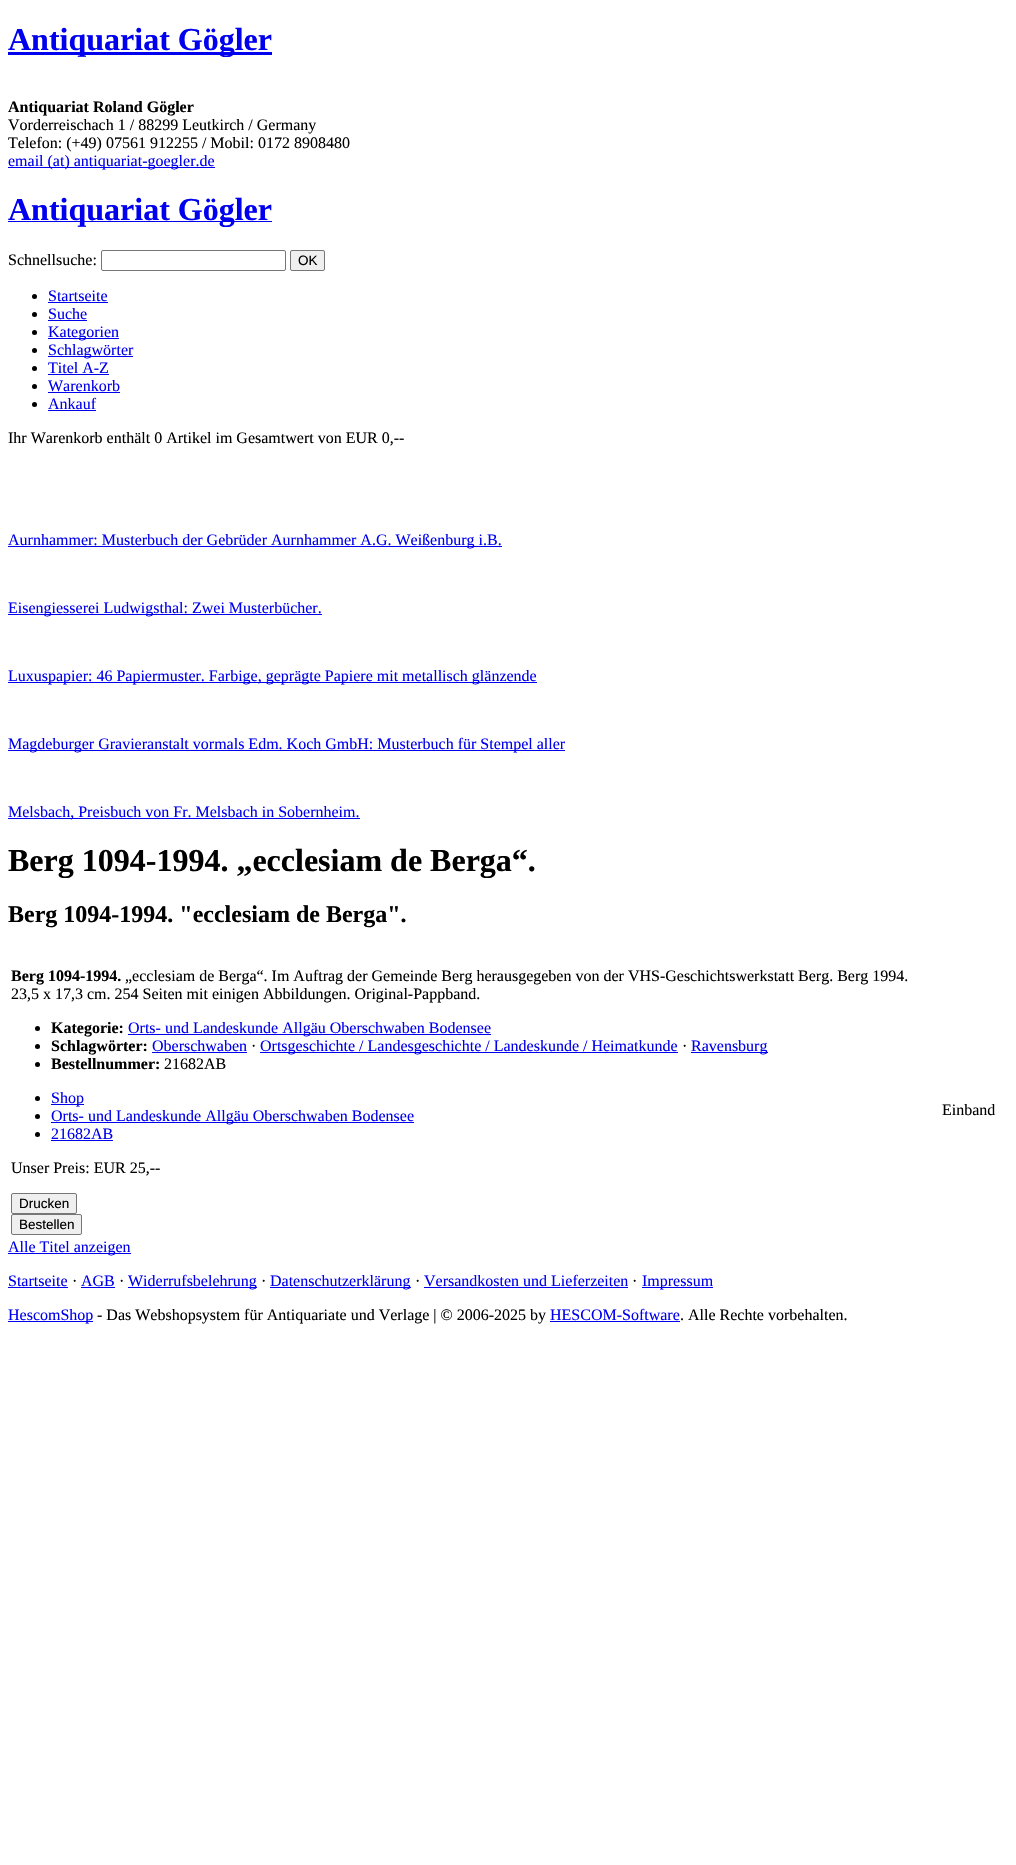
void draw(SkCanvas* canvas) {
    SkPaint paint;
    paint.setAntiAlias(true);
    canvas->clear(0xFFFFFFFF);
    paint.setColor(0xFF0000EE);
    canvas->drawRect(SkRect::MakeXYWH(8, 52, 264, 3), paint);
    SkFont font1(fontMgr->matchFamilyStyle("Liberation Serif", SkFontStyle::Bold()), 32);
    font1.setSubpixel(true);
    canvas->drawString("Antiquariat Gögler", 8, 50, font1, paint);
    SkFont font2(fontMgr->matchFamilyStyle("Liberation Serif", SkFontStyle::Bold()), 16);
    font2.setSubpixel(true);
    paint.setColor(0xFF000000);
    canvas->drawString("Antiquariat Roland Gögler", 8, 112, font2, paint);
    SkFont font3(fontMgr->matchFamilyStyle("Liberation Serif", SkFontStyle::Normal()), 16);
    font3.setSubpixel(true);
    canvas->drawString("Vorderreischach 1 / 88299 Leutkirch / Germany", 8, 130, font3, paint);
    canvas->drawString("Telefon: (+49) 07561 912255 / Mobil: 0172 8908480", 8, 148, font3, paint);
    paint.setColor(0xFF0000EE);
    canvas->drawRect(SkRect::MakeXYWH(8, 167, 207, 1), paint);
    canvas->drawString("email (at) antiquariat-goegler.de", 8, 166, font3, paint);
    canvas->drawRect(SkRect::MakeXYWH(8, 221, 264, 1), paint);
    canvas->drawString("Antiquariat Gögler", 8, 220, font1, paint);
    paint.setColor(0xFF000000);
    canvas->drawString("Schnellsuche:", 8, 265, font3, paint);
    paint.setStyle(SkPaint::kStroke_Style);
    paint.setStrokeWidth(1);
    paint.setColor(0xFF767676);
    canvas->drawRoundRect(SkRect::MakeXYWH(101.5f, 250.5f, 184, 20), 1.5f, 1.5f, paint);
    paint.setStyle(SkPaint::kFill_Style);
    paint.setColor(0xFFEFEFEF);
    canvas->drawRoundRect(SkRect::MakeXYWH(290.5f, 250.5f, 34, 20), 1.5f, 1.5f, paint);
    paint.setStyle(SkPaint::kStroke_Style);
    paint.setColor(0xFF767676);
    canvas->drawRoundRect(SkRect::MakeXYWH(290.5f, 250.5f, 34, 20), 1.5f, 1.5f, paint);
    SkFont font4(fontMgr->matchFamilyStyle("Liberation Sans", SkFontStyle::Normal()), 13.5f);
    font4.setSubpixel(true);
    paint.setStyle(SkPaint::kFill_Style);
    paint.setColor(0xFF000000);
    canvas->drawString("OK", 298, 265, font4, paint);
    canvas->drawCircle(34.5f, 296.5f, 2.5f, paint);
    paint.setColor(0xFF0000EE);
    canvas->drawString("Startseite", 48, 301, font3, paint);
    canvas->drawRect(SkRect::MakeXYWH(48, 302, 60, 1), paint);
    paint.setColor(0xFF000000);
    canvas->drawCircle(34.5f, 314.5f, 2.5f, paint);
    paint.setColor(0xFF0000EE);
    canvas->drawString("Suche", 48, 319, font3, paint);
    canvas->drawRect(SkRect::MakeXYWH(48, 320, 39, 1), paint);
    paint.setColor(0xFF000000);
    canvas->drawCircle(34.5f, 332.5f, 2.5f, paint);
    paint.setColor(0xFF0000EE);
    canvas->drawRect(SkRect::MakeXYWH(48, 338, 71, 1), paint);
    canvas->drawString("Kategorien", 48, 337, font3, paint);
    paint.setColor(0xFF000000);
    canvas->drawCircle(34.5f, 350.5f, 2.5f, paint);
    paint.setColor(0xFF0000EE);
    canvas->drawRect(SkRect::MakeXYWH(48, 356, 85, 1), paint);
    canvas->drawString("Schlagwörter", 48, 355, font3, paint);
    paint.setColor(0xFF000000);
    canvas->drawCircle(34.5f, 368.5f, 2.5f, paint);
    paint.setColor(0xFF0000EE);
    canvas->drawString("Titel A-Z", 48, 373, font3, paint);
    canvas->drawRect(SkRect::MakeXYWH(48, 374, 61, 1), paint);
    paint.setColor(0xFF000000);
    canvas->drawCircle(34.5f, 386.5f, 2.5f, paint);
    paint.setColor(0xFF0000EE);
    canvas->drawString("Warenkorb", 48, 391, font3, paint);
    canvas->drawRect(SkRect::MakeXYWH(48, 392, 72, 1), paint);
    paint.setColor(0xFF000000);
    canvas->drawCircle(34.5f, 404.5f, 2.5f, paint);
    paint.setColor(0xFF0000EE);
    canvas->drawString("Ankauf", 48, 409, font3, paint);
    canvas->drawRect(SkRect::MakeXYWH(48, 410, 48, 1), paint);
    paint.setColor(0xFF000000);
    canvas->drawString("Ihr Warenkorb enthält 0 Artikel im Gesamtwert von EUR 0,--", 8, 443, font3, paint);
    paint.setColor(0xFF0000EE);
    canvas->drawRect(SkRect::MakeXYWH(8, 546, 494, 1), paint);
    canvas->drawString("Aurnhammer: Musterbuch der Gebrüder Aurnhammer A.G. Weißenburg i.B.", 8, 545, font3, paint);
    canvas->drawRect(SkRect::MakeXYWH(8, 614, 314, 1), paint);
    canvas->drawString("Eisengiesserei Ludwigsthal: Zwei Musterbücher.", 8, 613, font3, paint);
    canvas->drawRect(SkRect::MakeXYWH(8, 682, 529, 1), paint);
    canvas->drawString("Luxuspapier: 46 Papiermuster. Farbige, geprägte Papiere mit metallisch glänzende", 8, 681, font3, paint);
    canvas->drawRect(SkRect::MakeXYWH(8, 750, 557, 1), paint);
    canvas->drawString("Magdeburger Gravieranstalt vormals Edm. Koch GmbH: Musterbuch für Stempel aller", 8, 749, font3, paint);
    canvas->drawRect(SkRect::MakeXYWH(8, 818, 352, 1), paint);
    canvas->drawString("Melsbach, Preisbuch von Fr. Melsbach in Sobernheim.", 8, 817, font3, paint);
    paint.setColor(0xFF000000);
    canvas->drawString("Berg 1094-1994. „ecclesiam de Berga“.", 8, 871, font1, paint);
    SkFont font5(fontMgr->matchFamilyStyle("Liberation Serif", SkFontStyle::Bold()), 24);
    font5.setSubpixel(true);
    canvas->drawString("Berg 1094-1994. \"ecclesiam de Berga\".", 8, 922, font5, paint);
    canvas->drawString("Berg 1094-1994.", 11, 981, font2, paint);
    canvas->drawString("„ecclesiam de Berga“. Im Auftrag der Gemeinde Berg herausgegeben von der VHS-Geschichtswerkstatt Berg. Berg 1994.", 125, 981, font3, paint);
    canvas->drawString("23,5 x 17,3 cm. 254 Seiten mit einigen Abbildungen. Original-Pappband.", 11, 999, font3, paint);
    canvas->drawCircle(37.5f, 1028.5f, 2.5f, paint);
    canvas->drawString("Kategorie:", 51, 1033, font2, paint);
    paint.setColor(0xFF0000EE);
    canvas->drawRect(SkRect::MakeXYWH(128, 1034, 363, 1), paint);
    canvas->drawString("Orts- und Landeskunde Allgäu Oberschwaben Bodensee", 128, 1033, font3, paint);
    paint.setColor(0xFF000000);
    canvas->drawCircle(37.5f, 1046.5f, 2.5f, paint);
    canvas->drawString("Schlagwörter:", 51, 1051, font2, paint);
    paint.setColor(0xFF0000EE);
    canvas->drawString("Oberschwaben", 152, 1051, font3, paint);
    canvas->drawRect(SkRect::MakeXYWH(152, 1052, 95, 1), paint);
    paint.setColor(0xFF000000);
    canvas->drawString("·", 251, 1051, font3, paint);
    paint.setColor(0xFF0000EE);
    canvas->drawRect(SkRect::MakeXYWH(260, 1052, 418, 1), paint);
    canvas->drawString("Ortsgeschichte / Landesgeschichte / Landeskunde / Heimatkunde", 260, 1051, font3, paint);
    paint.setColor(0xFF000000);
    canvas->drawString("·", 682, 1051, font3, paint);
    paint.setColor(0xFF0000EE);
    canvas->drawRect(SkRect::MakeXYWH(691, 1052, 77, 1), paint);
    canvas->drawString("Ravensburg", 691, 1051, font3, paint);
    paint.setColor(0xFF000000);
    canvas->drawCircle(37.5f, 1064.5f, 2.5f, paint);
    canvas->drawString("Bestellnummer:", 51, 1069, font2, paint);
    canvas->drawString("21682AB", 164, 1069, font3, paint);
    canvas->drawCircle(37.5f, 1098.5f, 2.5f, paint);
    paint.setColor(0xFF0000EE);
    canvas->drawRect(SkRect::MakeXYWH(51, 1104, 33, 1), paint);
    canvas->drawString("Shop", 51, 1103, font3, paint);
    paint.setColor(0xFF000000);
    canvas->drawCircle(37.5f, 1116.5f, 2.5f, paint);
    paint.setColor(0xFF0000EE);
    canvas->drawRect(SkRect::MakeXYWH(51, 1122, 363, 1), paint);
    canvas->drawString("Orts- und Landeskunde Allgäu Oberschwaben Bodensee", 51, 1121, font3, paint);
    paint.setColor(0xFF000000);
    canvas->drawCircle(37.5f, 1134.5f, 2.5f, paint);
    paint.setColor(0xFF0000EE);
    canvas->drawString("21682AB", 51, 1139, font3, paint);
    canvas->drawRect(SkRect::MakeXYWH(51, 1140, 62, 1), paint);
    paint.setColor(0xFF000000);
    canvas->drawString("Unser Preis: EUR 25,--", 11, 1173, font3, paint);
    paint.setColor(0xFFEFEFEF);
    canvas->drawRoundRect(SkRect::MakeXYWH(11.5f, 1193.5f, 65, 20), 1.5f, 1.5f, paint);
    paint.setStyle(SkPaint::kStroke_Style);
    paint.setColor(0xFF767676);
    canvas->drawRoundRect(SkRect::MakeXYWH(11.5f, 1193.5f, 65, 20), 1.5f, 1.5f, paint);
    paint.setStyle(SkPaint::kFill_Style);
    paint.setColor(0xFF000000);
    canvas->drawString("Drucken", 19, 1208, font4, paint);
    paint.setColor(0xFFEFEFEF);
    canvas->drawRoundRect(SkRect::MakeXYWH(11.5f, 1214.5f, 70, 20), 1.5f, 1.5f, paint);
    paint.setStyle(SkPaint::kStroke_Style);
    paint.setColor(0xFF767676);
    canvas->drawRoundRect(SkRect::MakeXYWH(11.5f, 1214.5f, 70, 20), 1.5f, 1.5f, paint);
    paint.setStyle(SkPaint::kFill_Style);
    paint.setColor(0xFF000000);
    canvas->drawString("Bestellen", 19, 1229, font4, paint);
    canvas->drawString("Einband", 942, 1115, font3, paint);
    paint.setColor(0xFF0000EE);
    canvas->drawRect(SkRect::MakeXYWH(8, 1253, 123, 1), paint);
    canvas->drawString("Alle Titel anzeigen", 8, 1252, font3, paint);
    canvas->drawString("Startseite", 8, 1286, font3, paint);
    canvas->drawRect(SkRect::MakeXYWH(8, 1287, 60, 1), paint);
    paint.setColor(0xFF000000);
    canvas->drawString("·", 72, 1286, font3, paint);
    paint.setColor(0xFF0000EE);
    canvas->drawString("AGB", 81, 1286, font3, paint);
    canvas->drawRect(SkRect::MakeXYWH(81, 1287, 34, 1), paint);
    paint.setColor(0xFF000000);
    canvas->drawString("·", 119, 1286, font3, paint);
    paint.setColor(0xFF0000EE);
    canvas->drawRect(SkRect::MakeXYWH(128, 1287, 129, 1), paint);
    canvas->drawString("Widerrufsbelehrung", 128, 1286, font3, paint);
    paint.setColor(0xFF000000);
    canvas->drawString("·", 261, 1286, font3, paint);
    paint.setColor(0xFF0000EE);
    canvas->drawRect(SkRect::MakeXYWH(270, 1287, 141, 1), paint);
    canvas->drawString("Datenschutzerklärung", 270, 1286, font3, paint);
    paint.setColor(0xFF000000);
    canvas->drawString("·", 415, 1286, font3, paint);
    paint.setColor(0xFF0000EE);
    canvas->drawString("Versandkosten und Lieferzeiten", 424, 1286, font3, paint);
    canvas->drawRect(SkRect::MakeXYWH(424, 1287, 204, 1), paint);
    paint.setColor(0xFF000000);
    canvas->drawString("·", 632, 1286, font3, paint);
    paint.setColor(0xFF0000EE);
    canvas->drawRect(SkRect::MakeXYWH(642, 1287, 71, 1), paint);
    canvas->drawString("Impressum", 642, 1286, font3, paint);
    canvas->drawRect(SkRect::MakeXYWH(8, 1321, 85, 1), paint);
    canvas->drawString("HescomShop", 8, 1320, font3, paint);
    paint.setColor(0xFF000000);
    canvas->drawString("- Das Webshopsystem für Antiquariate und Verlage | © 2006-2025 by", 97, 1320, font3, paint);
    paint.setColor(0xFF0000EE);
    canvas->drawString("HESCOM-Software", 550, 1320, font3, paint);
    canvas->drawRect(SkRect::MakeXYWH(550, 1321, 130, 1), paint);
    paint.setColor(0xFF000000);
    canvas->drawString(". Alle Rechte vorbehalten.", 680, 1320, font3, paint);
}
